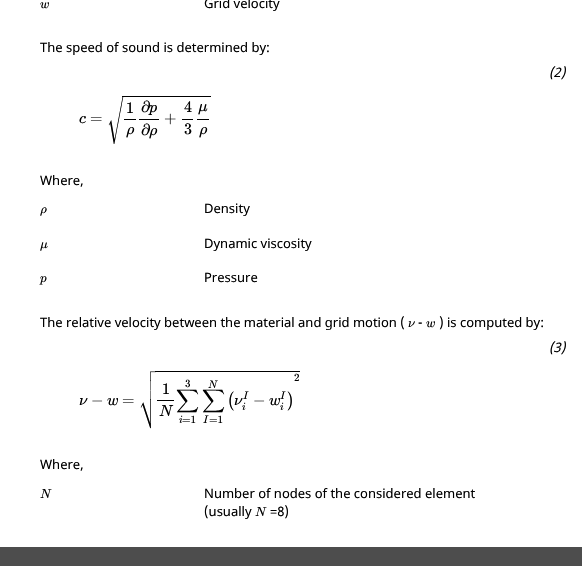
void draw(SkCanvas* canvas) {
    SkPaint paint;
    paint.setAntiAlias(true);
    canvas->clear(0xFFFFFFFF);
    SkFont font1(fontMgr->matchFamilyStyle("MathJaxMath", SkFontStyle::Italic()), 13);
    font1.setSubpixel(true);
    paint.setColor(0xFF000000);
    canvas->drawString("w", 40, 8, font1, paint);
    SkFont font2(fontMgr->matchFamilyStyle("Noto Sans", SkFontStyle::Normal()), 13);
    font2.setSubpixel(true);
    canvas->drawString("Grid velocity", 204, 8, font2, paint);
    canvas->drawString("The speed of sound is determined by:", 40, 52, font2, paint);
    SkFont font3(fontMgr->matchFamilyStyle("Noto Sans", SkFontStyle::Italic()), 13);
    font3.setSubpixel(true);
    canvas->drawString("(2)", 549, 77, font3, paint);
    SkFont font4(fontMgr->matchFamilyStyle("MathJaxMath", SkFontStyle::Italic()), 16);
    font4.setSubpixel(true);
    canvas->drawString("c", 79, 123, font4, paint);
    SkFont font5(fontMgr->matchFamilyStyle("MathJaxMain", SkFontStyle::Normal()), 16);
    font5.setSubpixel(true);
    canvas->drawString("=", 90, 123, font5, paint);
    SkFont font6(fontMgr->matchFamilyStyle("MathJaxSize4", SkFontStyle::Normal()), 16);
    font6.setSubpixel(true);
    canvas->drawString("√", 107, 124, font6, paint);
    canvas->drawRect(SkRect::MakeXYWH(122, 96, 89, 1), paint);
    canvas->drawString("1", 126, 113, font5, paint);
    canvas->drawRect(SkRect::MakeXYWH(124, 119, 12, 1), paint);
    canvas->drawString("ρ", 126, 134, font4, paint);
    canvas->drawString("∂", 141, 112, font5, paint);
    canvas->drawString("p", 149, 112, font4, paint);
    canvas->drawRect(SkRect::MakeXYWH(139, 119, 20, 1), paint);
    canvas->drawString("∂", 141, 135, font5, paint);
    canvas->drawString("ρ", 149, 135, font4, paint);
    canvas->drawString("+", 164, 123, font5, paint);
    canvas->drawString("4", 184, 112, font5, paint);
    canvas->drawRect(SkRect::MakeXYWH(182, 119, 11, 1), paint);
    canvas->drawString("3", 184, 134, font5, paint);
    canvas->drawString("μ", 198, 111, font4, paint);
    canvas->drawRect(SkRect::MakeXYWH(197, 119, 12, 1), paint);
    canvas->drawString("ρ", 199, 134, font4, paint);
    canvas->drawString("Where,", 40, 185, font2, paint);
    canvas->drawString("ρ", 40, 213, font1, paint);
    canvas->drawString("Density", 204, 213, font2, paint);
    canvas->drawString("μ", 40, 248, font1, paint);
    canvas->drawString("Dynamic viscosity", 204, 248, font2, paint);
    canvas->drawString("p", 40, 282, font1, paint);
    canvas->drawString("Pressure", 204, 282, font2, paint);
    canvas->drawString("The relative velocity between the material and grid motion (", 40, 327, font2, paint);
    canvas->drawString("ν", 408, 327, font1, paint);
    canvas->drawString("-", 418, 327, font2, paint);
    canvas->drawString("w", 426, 327, font1, paint);
    canvas->drawString(") is computed by:", 439, 327, font2, paint);
    canvas->drawString("(3)", 549, 352, font3, paint);
    canvas->drawString("ν", 79, 405, font4, paint);
    canvas->drawString("−", 91, 405, font5, paint);
    canvas->drawString("w", 107, 405, font4, paint);
    canvas->drawString("=", 122, 405, font5, paint);
    canvas->drawImageRect(SkImages::DeferredFromEncodedData(SkData::MakeFromFileName("img1.png")), SkRect::MakeXYWH(150, 371, 6, 11), SkSamplingOptions());
    canvas->drawPath(SkPathBuilder().moveTo(150.5f, 390).lineTo(150.5f, 380).lineTo(150, 380.5f).lineTo(150, 390).close().moveTo(150.5f, 400).lineTo(150.5f, 390).lineTo(150, 390.5f).lineTo(150, 400).close().detach(), paint);
    canvas->drawString("⎷", 139, 414, font6, paint);
    canvas->drawRect(SkRect::MakeXYWH(155, 371, 145, 1), paint);
    canvas->drawString("1", 162, 394, font5, paint);
    canvas->drawRect(SkRect::MakeXYWH(157, 400, 17, 1), paint);
    canvas->drawString("N", 159, 416, font4, paint);
    SkFont font7(fontMgr->matchFamilyStyle("MathJaxMain", SkFontStyle::Normal()), 11);
    font7.setSubpixel(true);
    canvas->drawString("2", 294, 381, font7, paint);
    canvas->drawString("3", 185, 387, font7, paint);
    SkFont font8(fontMgr->matchFamilyStyle("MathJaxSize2", SkFontStyle::Normal()), 16);
    font8.setSubpixel(true);
    canvas->drawString("∑", 176, 405, font8, paint);
    SkFont font9(fontMgr->matchFamilyStyle("MathJaxMath", SkFontStyle::Italic()), 11);
    font9.setSubpixel(true);
    canvas->drawString("i", 179, 423, font9, paint);
    canvas->drawString("=1", 182, 423, font7, paint);
    canvas->drawString("N", 208, 388, font9, paint);
    canvas->drawString("∑", 202, 405, font8, paint);
    canvas->drawString("I", 203, 423, font9, paint);
    canvas->drawString("=1", 209, 423, font7, paint);
    SkFont font10(fontMgr->matchFamilyStyle("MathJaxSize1", SkFontStyle::Normal()), 16);
    font10.setSubpixel(true);
    canvas->drawString("(", 227, 405, font10, paint);
    canvas->drawString("ν", 234, 405, font4, paint);
    canvas->drawString("I", 243, 399, font9, paint);
    canvas->drawString("i", 242, 410, font9, paint);
    canvas->drawString("−", 253, 405, font5, paint);
    canvas->drawString("w", 269, 405, font4, paint);
    canvas->drawString("I", 280, 399, font9, paint);
    canvas->drawString("i", 280, 410, font9, paint);
    canvas->drawString(")", 287, 405, font10, paint);
    canvas->drawString("Where,", 40, 469, font2, paint);
    canvas->drawString("N", 40, 498, font1, paint);
    canvas->drawString("Number of nodes of the considered element", 204, 498, font2, paint);
    canvas->drawString("(usually", 204, 516, font2, paint);
    canvas->drawString("N", 255, 516, font1, paint);
    canvas->drawString("=8)", 270, 516, font2, paint);
    paint.setColor(0xFF4D4D4D);
    canvas->drawRect(SkRect::MakeXYWH(0, 547, 582, 19), paint);
}
